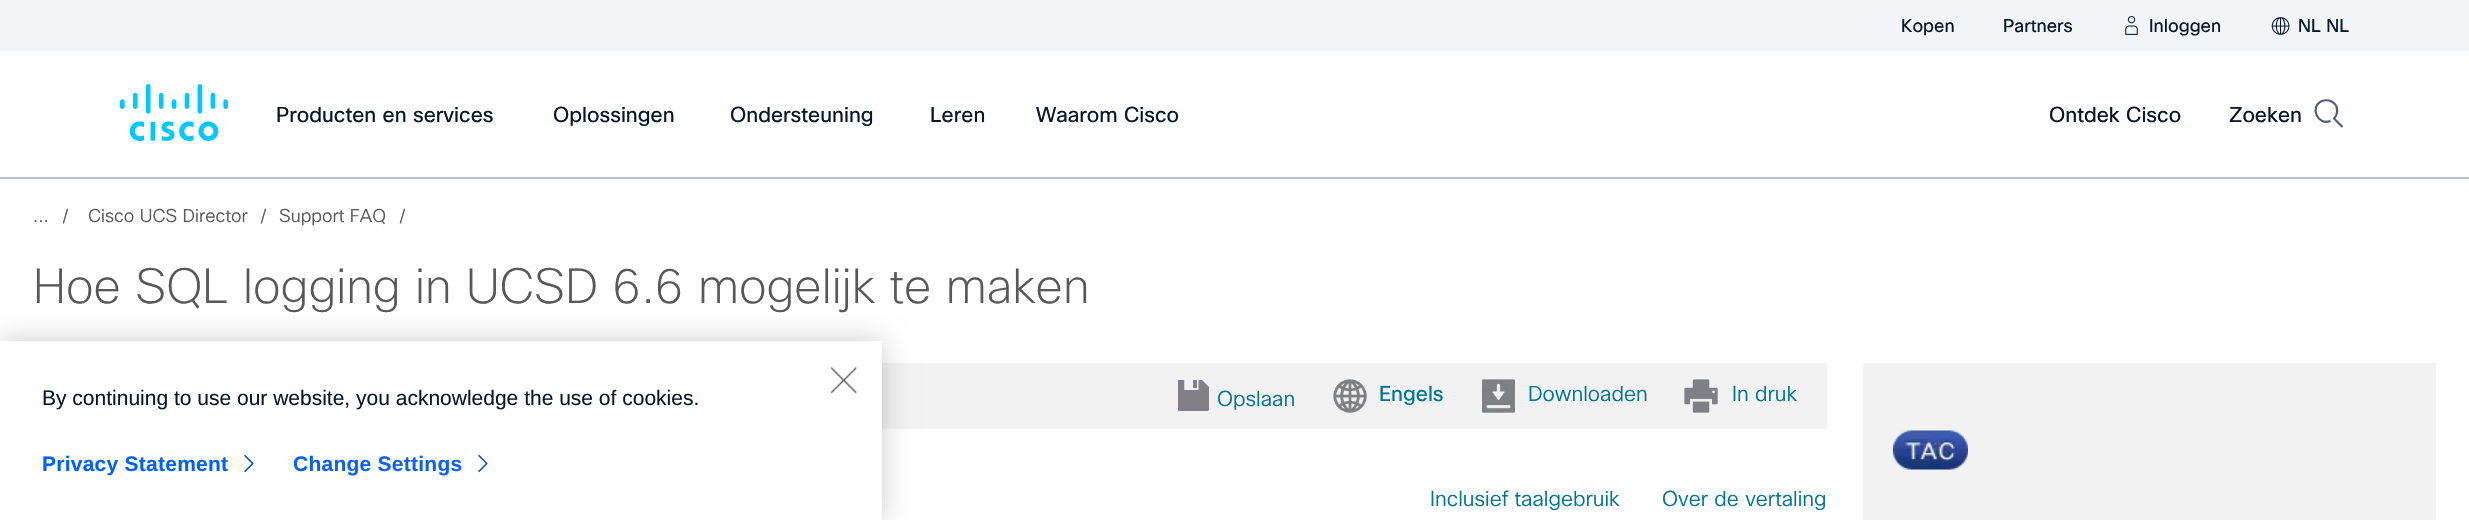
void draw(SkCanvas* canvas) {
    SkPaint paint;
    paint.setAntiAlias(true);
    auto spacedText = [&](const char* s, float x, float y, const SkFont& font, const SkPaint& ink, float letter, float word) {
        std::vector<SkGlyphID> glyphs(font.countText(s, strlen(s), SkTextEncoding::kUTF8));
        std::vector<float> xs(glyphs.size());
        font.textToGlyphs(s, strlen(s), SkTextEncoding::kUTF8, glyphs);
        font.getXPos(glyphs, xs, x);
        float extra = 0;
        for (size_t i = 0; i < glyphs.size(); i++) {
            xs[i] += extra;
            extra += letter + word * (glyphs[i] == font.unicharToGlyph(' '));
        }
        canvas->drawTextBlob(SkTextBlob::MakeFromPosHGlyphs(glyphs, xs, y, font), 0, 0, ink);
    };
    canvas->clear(0xFFF2F5F7);
    SkFont font1(fontMgr->matchFamilyStyle("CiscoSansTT", SkFontStyle::Normal()), 18);
    font1.setSubpixel(true);
    paint.setColor(0xFF07182D);
    canvas->drawString("Kopen", 1901, 32, font1, paint);
    canvas->drawString("Partners", 2003, 32, font1, paint);
    canvas->drawImageRect(SkImages::DeferredFromEncodedData(SkData::MakeFromFileName("img1.png")), SkRect::MakeXYWH(2125, 16, 13, 19), SkSamplingOptions());
    canvas->drawString("Inloggen", 2149, 32, font1, paint);
    canvas->drawImageRect(SkImages::DeferredFromEncodedData(SkData::MakeFromFileName("img2.png")), SkRect::MakeXYWH(2271, 17, 19, 18), SkSamplingOptions());
    canvas->drawString("NL NL", 2298, 32, font1, paint);
    paint.setColor(0xFFFFFFFF);
    canvas->drawRect(SkRect::MakeXYWH(0, 51, 2469, 126), paint);
    paint.setColor(0xFFB9C1C9);
    canvas->drawRect(SkRect::MakeXYWH(0, 177, 2469, 2), paint);
    canvas->drawImageRect(SkImages::DeferredFromEncodedData(SkData::MakeFromFileName("img3.png")), SkRect::MakeXYWH(120, 84, 108, 57), SkSamplingOptions());
    SkFont font2(fontMgr->matchFamilyStyle("CiscoSansTT", SkFontStyle::Normal()), 21);
    font2.setSubpixel(true);
    paint.setColor(0xFF07182D);
    canvas->drawString("Producten en services", 276, 122, font2, paint);
    canvas->drawString("Oplossingen", 553, 122, font2, paint);
    canvas->drawString("Ondersteuning", 730, 122, font2, paint);
    canvas->drawString("Leren", 930, 122, font2, paint);
    canvas->drawString("Waarom Cisco", 1036, 122, font2, paint);
    canvas->drawString("Ontdek Cisco", 2049, 122, font2, paint);
    canvas->drawString("Zoeken", 2229, 122, font2, paint);
    paint.setStyle(SkPaint::kStroke_Style);
    paint.setStrokeWidth(2.2f);
    paint.setStrokeJoin(SkPaint::kRound_Join);
    paint.setColor(0xFF536070);
    canvas->drawPath(SkPathBuilder().moveTo(2330.5f, 121).cubicTo(2317.5f, 126, 2309, 106.5f, 2322, 101).cubicTo(2325, 100, 2328, 100, 2330.5f, 101).cubicTo(2334, 102.5f, 2336.5f, 105.5f, 2337, 108.5f).cubicTo(2337.5f, 112.5f, 2336.5f, 116, 2334, 118.5f).lineTo(2342.5f, 127).detach(), paint);
    paint.setStyle(SkPaint::kFill_Style);
    paint.setColor(0xFFFFFFFF);
    canvas->drawRect(SkRect::MakeXYWH(0, 179, 2469, 341), paint);
    SkFont font3(fontMgr->matchFamilyStyle("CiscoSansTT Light", SkFontStyle(300, SkFontStyle::kNormal_Width, SkFontStyle::kUpright_Slant)), 18);
    font3.setSubpixel(true);
    paint.setColor(0xFF58585B);
    canvas->drawString("...", 33, 222, font3, paint);
    canvas->drawString("/", 62, 222, font3, paint);
    canvas->drawString("Cisco UCS Director", 88, 222, font3, paint);
    canvas->drawString("/", 260, 222, font3, paint);
    canvas->drawString("Support FAQ", 279, 222, font3, paint);
    canvas->drawString("/", 399, 222, font3, paint);
    SkFont font4(fontMgr->matchFamilyStyle("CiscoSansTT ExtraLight", SkFontStyle(200, SkFontStyle::kNormal_Width, SkFontStyle::kUpright_Slant)), 48);
    font4.setSubpixel(true);
    canvas->drawString("Hoe SQL logging in UCSD 6.6 mogelijk te maken", 33, 303, font4, paint);
    paint.setColor(0xFFF2F2F2);
    canvas->drawRect(SkRect::MakeXYWH(882, 363, 945, 66), paint);
    canvas->drawImageRect(SkImages::DeferredFromEncodedData(SkData::MakeFromFileName("img4.png")), SkRect::MakeXYWH(1178, 380, 31, 31), SkSamplingOptions());
    SkFont font5(fontMgr->matchFamilyStyle("CiscoSansTT Light", SkFontStyle(300, SkFontStyle::kNormal_Width, SkFontStyle::kUpright_Slant)), 21);
    font5.setSubpixel(true);
    paint.setColor(0xFF007493);
    canvas->drawString("Opslaan", 1217, 406, font5, paint);
    canvas->drawImageRect(SkImages::DeferredFromEncodedData(SkData::MakeFromFileName("img5.png")), SkRect::MakeXYWH(1333, 379, 34, 34), SkSamplingOptions());
    canvas->drawString("Engels", 1379, 401, font2, paint);
    canvas->drawImageRect(SkImages::DeferredFromEncodedData(SkData::MakeFromFileName("img6.png")), SkRect::MakeXYWH(1482, 379, 33, 34), SkSamplingOptions());
    canvas->drawString("Downloaden", 1528, 401, font5, paint);
    canvas->drawImageRect(SkImages::DeferredFromEncodedData(SkData::MakeFromFileName("img7.png")), SkRect::MakeXYWH(1684, 379, 34, 34), SkSamplingOptions());
    canvas->drawString("In druk", 1732, 401, font5, paint);
    canvas->drawString("Inclusief taalgebruik", 1430, 506, font5, paint);
    canvas->drawString("Over de vertaling", 1662, 506, font5, paint);
    paint.setColor(0xFFF2F2F2);
    canvas->drawRect(SkRect::MakeXYWH(1863, 363, 573, 157), paint);
    canvas->drawImageRect(SkImages::DeferredFromEncodedData(SkData::MakeFromFileName("img8.png")), SkRect::MakeXYWH(1893, 430, 75, 40), SkSamplingOptions());
    paint.setColor(0x33000000);
    paint.setMaskFilter(SkMaskFilter::MakeBlur(kNormal_SkBlurStyle, 13.5f));
    canvas->drawRect(SkRect::MakeXYWH(0, 341, 882, 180), paint);
    paint.setMaskFilter(nullptr);
    paint.setColor(0xFFFFFFFF);
    canvas->drawRect(SkRect::MakeXYWH(0, 341, 882, 179), paint);
    canvas->drawImageRect(SkImages::DeferredFromEncodedData(SkData::MakeFromFileName("img9.png")), SkRect::MakeXYWH(830, 366, 27, 28), SkSamplingOptions());
    SkFont font6(fontMgr->matchFamilyStyle("Liberation Sans", SkFontStyle::Normal()), 21);
    font6.setSubpixel(true);
    paint.setColor(0xFF07182D);
    canvas->drawString("By continuing to use our website, you acknowledge the use of cookies.", 42, 405, font6, paint);
    SkFont font7(fontMgr->matchFamilyStyle("Liberation Sans", SkFontStyle::Bold()), 21);
    font7.setSubpixel(true);
    paint.setColor(0xFF0060FF);
    spacedText("Privacy Statement", 42, 471, font7, paint, 0.25f, 0);
    canvas->drawImageRect(SkImages::DeferredFromEncodedData(SkData::MakeFromFileName("img10.png")), SkRect::MakeXYWH(244, 455, 10, 18), SkSamplingOptions());
    paint.setColor(0xFF0A60FF);
    spacedText("Change Settings", 293, 471, font7, paint, 0.25f, 0);
    canvas->drawImageRect(SkImages::DeferredFromEncodedData(SkData::MakeFromFileName("img10.png")), SkRect::MakeXYWH(478, 455, 10, 18), SkSamplingOptions());
}
